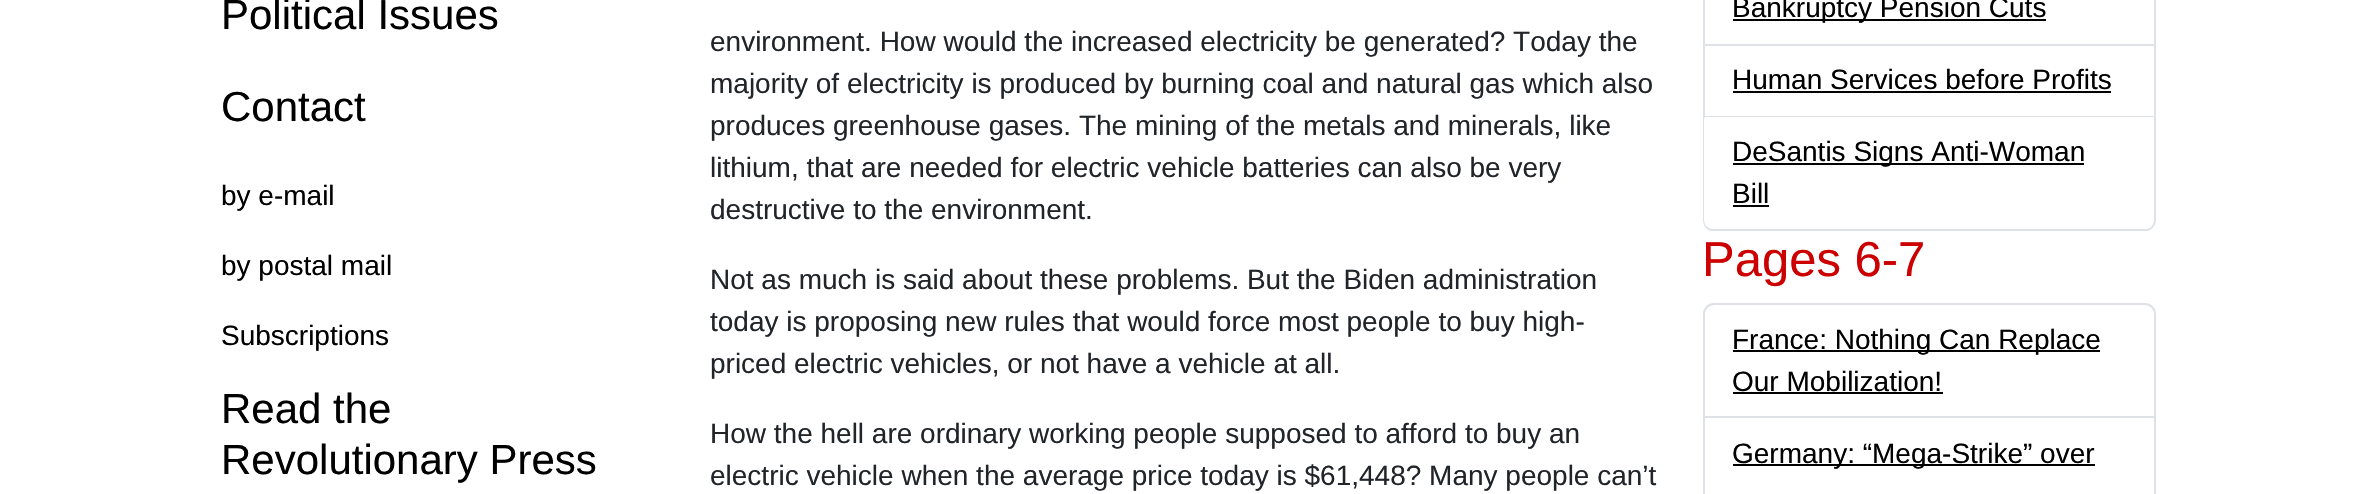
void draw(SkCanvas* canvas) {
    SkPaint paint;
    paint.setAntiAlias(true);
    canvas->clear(0xFFFFFFFF);
    SkFont font1(fontMgr->matchFamilyStyle("Liberation Sans", SkFontStyle::Normal()), 42);
    font1.setSubpixel(true);
    paint.setColor(0xFF000000);
    canvas->drawString("Political Issues", 221, 29, font1, paint);
    canvas->drawString("Contact", 221, 121, font1, paint);
    SkFont font2(fontMgr->matchFamilyStyle("Liberation Sans", SkFontStyle::Normal()), 28);
    font2.setSubpixel(true);
    canvas->drawString("by e-mail", 221, 205, font2, paint);
    canvas->drawString("by postal mail", 221, 275, font2, paint);
    canvas->drawString("Subscriptions", 221, 345, font2, paint);
    canvas->drawString("Read the", 221, 423, font1, paint);
    canvas->drawString("Revolutionary Press", 221, 474, font1, paint);
    paint.setColor(0xFF212529);
    canvas->drawString("environment. How would the increased electricity be generated? Today the", 710, 51, font2, paint);
    canvas->drawString("majority of electricity is produced by burning coal and natural gas which also", 710, 93, font2, paint);
    canvas->drawString("produces greenhouse gases. The mining of the metals and minerals, like", 710, 135, font2, paint);
    canvas->drawString("lithium, that are needed for electric vehicle batteries can also be very", 710, 177, font2, paint);
    canvas->drawString("destructive to the environment.", 710, 219, font2, paint);
    canvas->drawString("Not as much is said about these problems. But the Biden administration", 710, 289, font2, paint);
    canvas->drawString("today is proposing new rules that would force most people to buy high-", 710, 331, font2, paint);
    canvas->drawString("priced electric vehicles, or not have a vehicle at all.", 710, 373, font2, paint);
    canvas->drawString("How the hell are ordinary working people supposed to afford to buy an", 710, 443, font2, paint);
    canvas->drawString("electric vehicle when the average price today is $61,448? Many people can’t", 710, 485, font2, paint);
    paint.setColor(0xFFDEE2E6);
    canvas->drawRect(SkRect::MakeXYWH(2154, 0, 2, 117), paint);
    canvas->drawRect(SkRect::MakeXYWH(1703, 44, 453, 2), paint);
    canvas->drawRect(SkRect::MakeXYWH(1703, 0, 2, 46), paint);
    paint.setColor(0xFF000000);
    canvas->drawRect(SkRect::MakeXYWH(1733, 19, 313, 2), paint);
    canvas->drawString("Bankruptcy Pension Cuts", 1732, 17, font2, paint);
    paint.setColor(0xFFDEE2E6);
    canvas->drawRect(SkRect::MakeXYWH(1703, 116, 453, 2), paint);
    canvas->drawRect(SkRect::MakeXYWH(1703, 46, 2, 71), paint);
    paint.setColor(0xFF000000);
    canvas->drawString("Human Services before Profits", 1732, 89, font2, paint);
    canvas->drawRect(SkRect::MakeXYWH(1733, 91, 378, 2), paint);
    paint.setColor(0xFFFFFFFF);
    canvas->drawPath(SkPathBuilder().moveTo(1705, 117).lineTo(2154, 117).lineTo(2154, 220).cubicTo(2154, 225, 2150, 229, 2145, 229).lineTo(1714, 229).cubicTo(1709, 229, 1705, 225, 1705, 220).close().detach(), paint);
    paint.setColor(0xFFDEE2E6);
    canvas->drawPath(SkPathBuilder(SkPathFillType::kEvenOdd).moveTo(1703, 117).lineTo(2156, 117).lineTo(2156, 220).cubicTo(2156, 226, 2151, 231, 2146, 231).lineTo(1713, 231).cubicTo(1707, 231, 1703, 226, 1703, 220).close().moveTo(1704, 117).lineTo(2154, 117).lineTo(2154, 220).cubicTo(2154, 225, 2150, 229, 2146, 229).lineTo(1713, 229).cubicTo(1708, 229, 1704, 225, 1704, 220).close().detach(), paint);
    paint.setColor(0xFF000000);
    canvas->drawRect(SkRect::MakeXYWH(1733, 163, 351, 2), paint);
    canvas->drawString("DeSantis Signs Anti-Woman", 1732, 161, font2, paint);
    canvas->drawString("Bill", 1732, 203, font2, paint);
    canvas->drawRect(SkRect::MakeXYWH(1733, 205, 36, 2), paint);
    SkFont font3(fontMgr->matchFamilyStyle("Liberation Sans", SkFontStyle::Normal()), 49);
    font3.setSubpixel(true);
    paint.setColor(0xFFCC0000);
    canvas->drawString("Pages 6-7", 1702, 276, font3, paint);
    paint.setStyle(SkPaint::kStroke_Style);
    paint.setStrokeWidth(2);
    paint.setColor(0xFFDEE2E6);
    canvas->drawPath(SkPathBuilder().moveTo(1714, 304).lineTo(2145, 304).cubicTo(2150.5f, 304, 2155, 308.5f, 2155, 314).lineTo(2155, 417).lineTo(1704, 417).lineTo(1704, 314).cubicTo(1704, 308.5f, 1708.5f, 304, 1714, 304).close().detach(), paint);
    paint.setStyle(SkPaint::kFill_Style);
    paint.setColor(0xFF000000);
    canvas->drawRect(SkRect::MakeXYWH(1733, 350, 367, 2), paint);
    canvas->drawString("France: Nothing Can Replace", 1732, 349, font2, paint);
    canvas->drawString("Our Mobilization!", 1732, 391, font2, paint);
    canvas->drawRect(SkRect::MakeXYWH(1733, 392, 210, 2), paint);
    paint.setColor(0xFFDEE2E6);
    canvas->drawRect(SkRect::MakeXYWH(2154, 418, 2, 76), paint);
    canvas->drawRect(SkRect::MakeXYWH(1703, 418, 2, 76), paint);
    paint.setColor(0xFF000000);
    canvas->drawRect(SkRect::MakeXYWH(1733, 464, 362, 2), paint);
    canvas->drawString("Germany: “Mega-Strike” over", 1732, 463, font2, paint);
}
